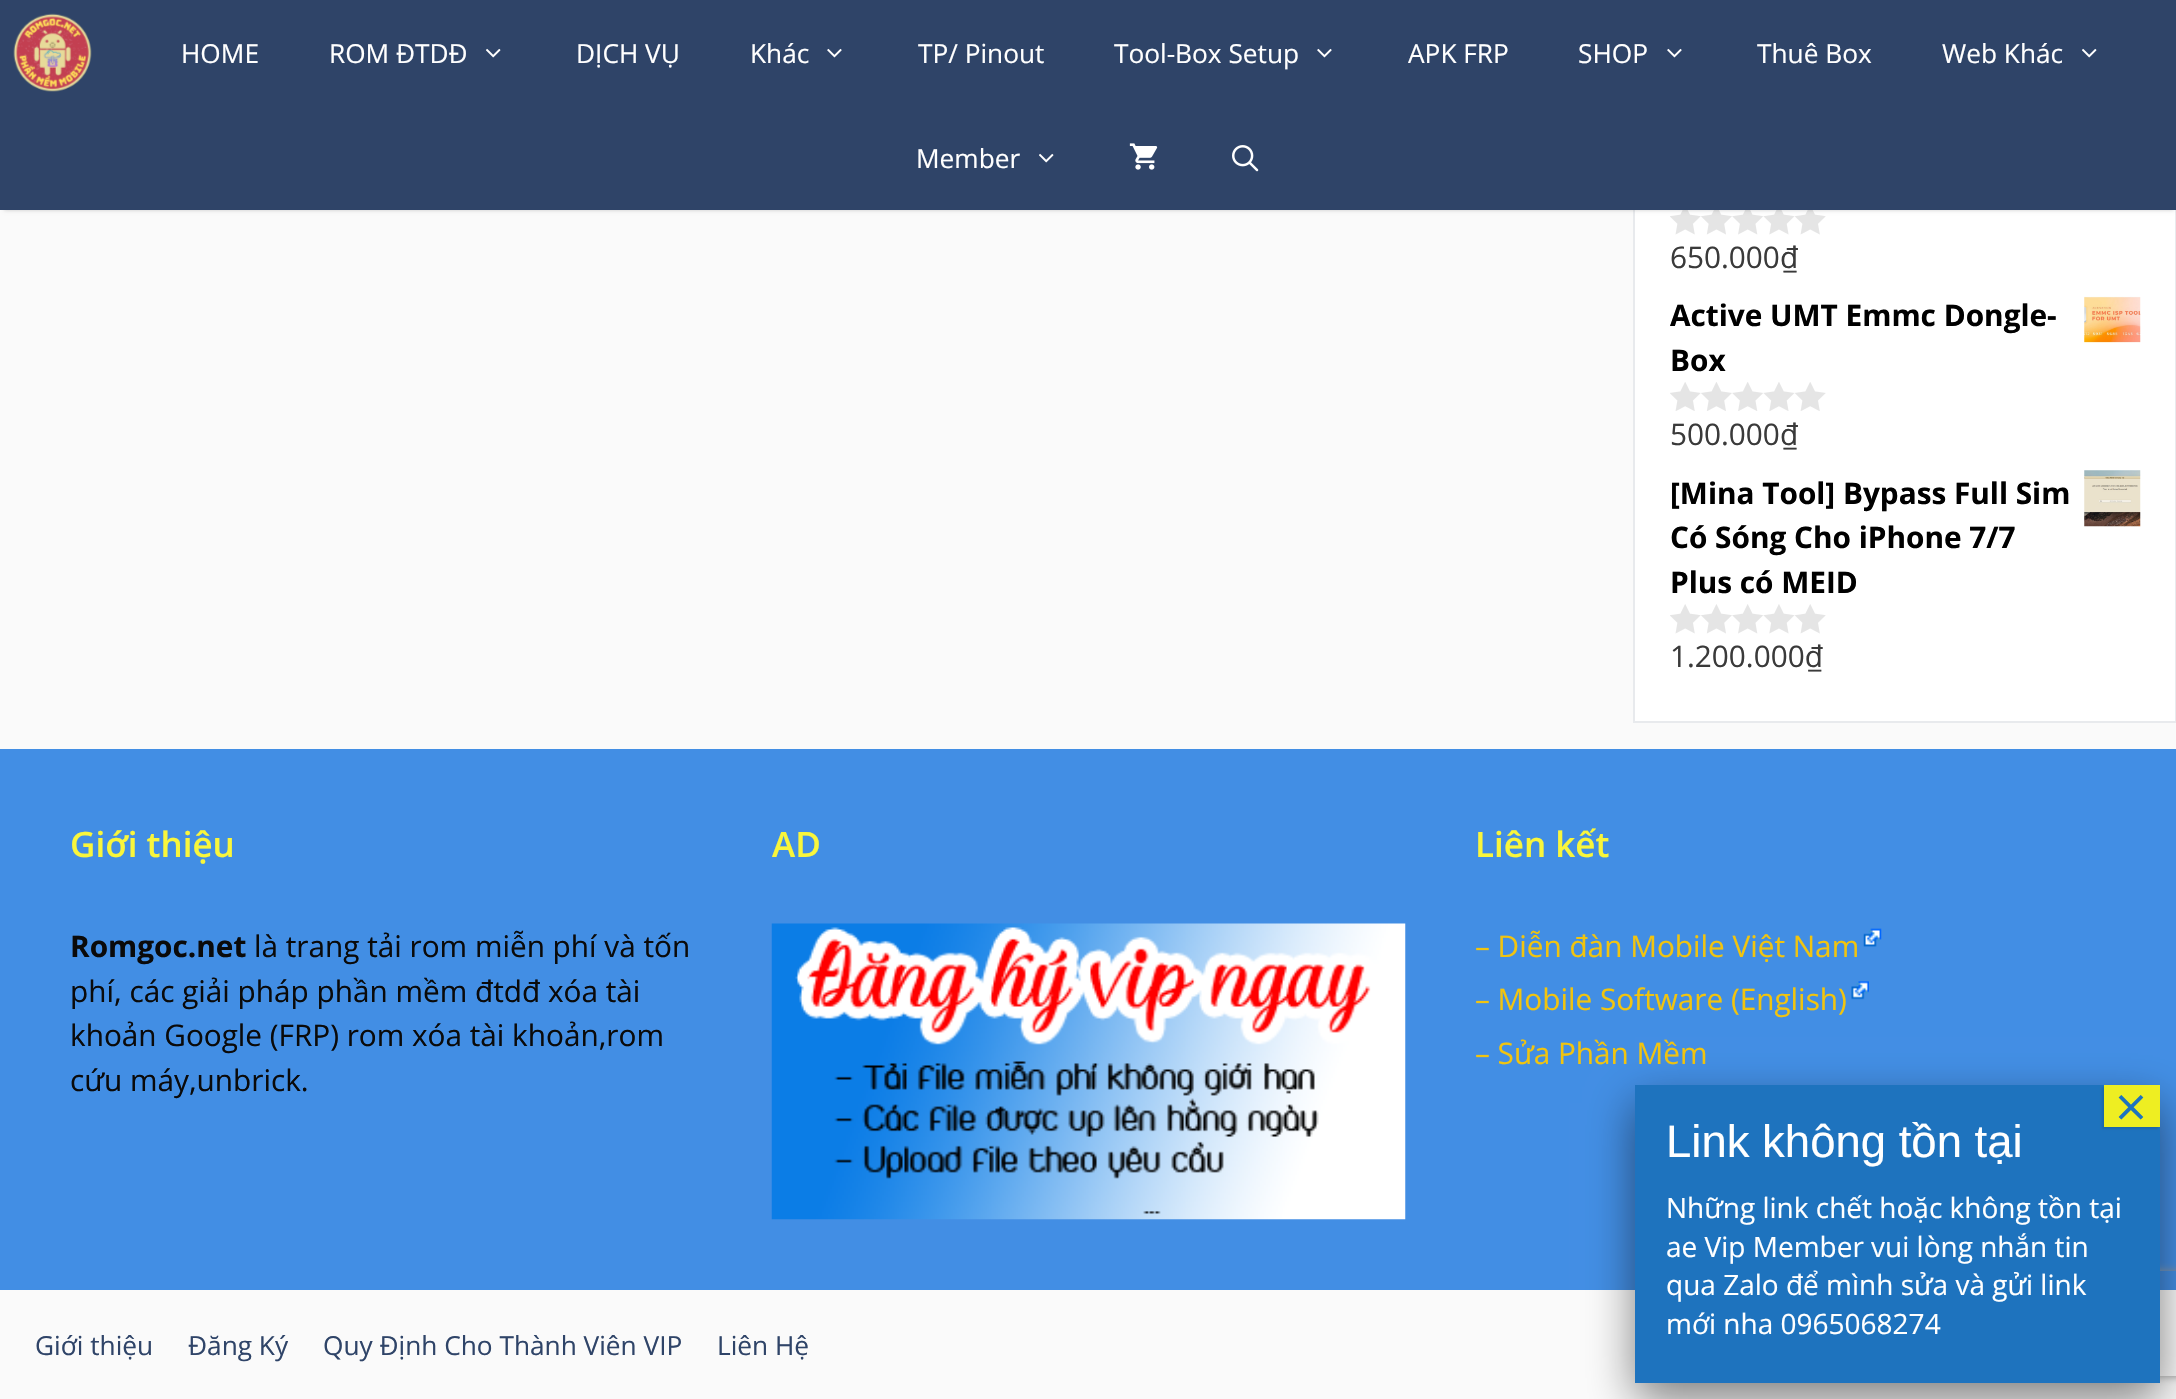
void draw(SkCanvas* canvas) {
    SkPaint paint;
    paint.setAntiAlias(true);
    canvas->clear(0xFFFAFAFA);
    paint.setColor(0xFFFFFFFF);
    canvas->drawRect(SkRect::MakeXYWH(1635, 210, 540, 511), paint);
    paint.setStyle(SkPaint::kStroke_Style);
    paint.setStrokeWidth(2);
    paint.setColor(0xFFE8EAED);
    canvas->drawRect(SkRect::MakeXYWH(1634, -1, 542, 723), paint);
    canvas->drawImageRect(SkImages::DeferredFromEncodedData(SkData::MakeFromFileName("img6.png")), SkRect::MakeXYWH(1670, 210, 156, 25), SkSamplingOptions());
    paint.setStyle(SkPaint::kFill_Style);
    paint.setColor(0x33000000);
    paint.setMaskFilter(SkMaskFilter::MakeBlur(kNormal_SkBlurStyle, 2));
    canvas->drawRect(SkRect::MakeXYWH(4, 7, 2170, 203), paint);
    paint.setMaskFilter(nullptr);
    paint.setColor(0xFF2F4468);
    canvas->drawRect(SkRect::MakeXYWH(0, 0, 2176, 210), paint);
    canvas->drawImageRect(SkImages::DeferredFromEncodedData(SkData::MakeFromFileName("img1.png")), SkRect::MakeXYWH(13, 13, 79, 79), SkSamplingOptions());
    SkFont font1(fontMgr->matchFamilyStyle("Open Sans", SkFontStyle::Normal()), 26.25f);
    font1.setSubpixel(true);
    paint.setColor(0xFFFFFFFF);
    canvas->drawString("HOME", 181, 63, font1, paint);
    canvas->drawString("ROM ĐTDĐ", 329, 63, font1, paint);
    canvas->drawImageRect(SkImages::DeferredFromEncodedData(SkData::MakeFromFileName("img2.png")), SkRect::MakeXYWH(486, 48, 15, 10), SkSamplingOptions());
    canvas->drawString("DỊCH VỤ", 576, 63, font1, paint);
    canvas->drawString("Khác", 750, 63, font1, paint);
    canvas->drawImageRect(SkImages::DeferredFromEncodedData(SkData::MakeFromFileName("img3.png")), SkRect::MakeXYWH(827, 48, 15, 10), SkSamplingOptions());
    canvas->drawString("TP/ Pinout", 918, 63, font1, paint);
    canvas->drawString("Tool-Box Setup", 1114, 63, font1, paint);
    canvas->drawImageRect(SkImages::DeferredFromEncodedData(SkData::MakeFromFileName("img3.png")), SkRect::MakeXYWH(1317, 48, 15, 10), SkSamplingOptions());
    canvas->drawString("APK FRP", 1408, 63, font1, paint);
    canvas->drawString("SHOP", 1578, 63, font1, paint);
    canvas->drawImageRect(SkImages::DeferredFromEncodedData(SkData::MakeFromFileName("img3.png")), SkRect::MakeXYWH(1667, 48, 15, 10), SkSamplingOptions());
    canvas->drawString("Thuê Box", 1757, 63, font1, paint);
    canvas->drawString("Web Khác", 1942, 63, font1, paint);
    canvas->drawImageRect(SkImages::DeferredFromEncodedData(SkData::MakeFromFileName("img2.png")), SkRect::MakeXYWH(2082, 48, 15, 10), SkSamplingOptions());
    canvas->drawString("Member", 916, 168, font1, paint);
    canvas->drawImageRect(SkImages::DeferredFromEncodedData(SkData::MakeFromFileName("img2.png")), SkRect::MakeXYWH(1039, 153, 15, 10), SkSamplingOptions());
    canvas->drawImageRect(SkImages::DeferredFromEncodedData(SkData::MakeFromFileName("img4.png")), SkRect::MakeXYWH(1129, 143, 29, 27), SkSamplingOptions());
    canvas->drawImageRect(SkImages::DeferredFromEncodedData(SkData::MakeFromFileName("img5.png")), SkRect::MakeXYWH(1232, 145, 27, 27), SkSamplingOptions());
    SkFont font2(fontMgr->matchFamilyStyle("Open Sans", SkFontStyle::Normal()), 29.75f);
    font2.setSubpixel(true);
    paint.setColor(0xFF3A3A3A);
    canvas->drawString("650.000₫", 1670, 268, font2, paint);
    SkFont font3(fontMgr->matchFamilyStyle("Open Sans", SkFontStyle::Bold()), 29.75f);
    font3.setSubpixel(true);
    paint.setColor(0xFF000000);
    canvas->drawString("Active UMT Emmc Dongle-", 1670, 326, font3, paint);
    canvas->drawImageRect(SkImages::DeferredFromEncodedData(SkData::MakeFromFileName("img7.png")), SkRect::MakeXYWH(2084, 296, 57, 47), SkSamplingOptions());
    canvas->drawString("Box", 1670, 371, font3, paint);
    canvas->drawImageRect(SkImages::DeferredFromEncodedData(SkData::MakeFromFileName("img8.png")), SkRect::MakeXYWH(1670, 382, 156, 29), SkSamplingOptions());
    paint.setColor(0xFF3A3A3A);
    canvas->drawString("500.000₫", 1670, 445, font2, paint);
    paint.setColor(0xFF000000);
    canvas->drawString("[Mina Tool] Bypass Full Sim", 1670, 504, font3, paint);
    canvas->drawImageRect(SkImages::DeferredFromEncodedData(SkData::MakeFromFileName("img9.png")), SkRect::MakeXYWH(2084, 470, 57, 57), SkSamplingOptions());
    canvas->drawString("Có Sóng Cho iPhone 7/7", 1670, 548, font3, paint);
    canvas->drawString("Plus có MEID", 1670, 593, font3, paint);
    canvas->drawImageRect(SkImages::DeferredFromEncodedData(SkData::MakeFromFileName("img10.png")), SkRect::MakeXYWH(1670, 604, 156, 30), SkSamplingOptions());
    paint.setColor(0xFF3A3A3A);
    canvas->drawString("1.200.000₫", 1670, 667, font2, paint);
    paint.setColor(0xFF428EE4);
    canvas->drawRect(SkRect::MakeXYWH(0, 749, 2176, 541), paint);
    SkFont font4(fontMgr->matchFamilyStyle("Open Sans", SkFontStyle(600, SkFontStyle::kNormal_Width, SkFontStyle::kUpright_Slant)), 35);
    font4.setSubpixel(true);
    paint.setColor(0xFFF9F63B);
    canvas->drawString("Giới thiệu", 70, 857, font4, paint);
    paint.setColor(0xFF0A0A0A);
    canvas->drawString("Romgoc.net", 70, 957, font3, paint);
    canvas->drawString("là trang tải rom miễn phí và tốn", 254, 957, font2, paint);
    canvas->drawString("phí, các giải pháp phần mềm đtdđ xóa tài", 70, 1002, font2, paint);
    canvas->drawString("khoản Google (FRP) rom xóa tài khoản,rom", 70, 1046, font2, paint);
    canvas->drawString("cứu máy,unbrick.", 70, 1091, font2, paint);
    paint.setColor(0xFFF9F63B);
    canvas->drawString("AD", 772, 857, font4, paint);
    canvas->drawImageRect(SkImages::DeferredFromEncodedData(SkData::MakeFromFileName("img11.png")), SkRect::MakeXYWH(771, 923, 635, 297), SkSamplingOptions());
    canvas->drawString("Liên kết", 1475, 857, font4, paint);
    paint.setColor(0xFFF1C40F);
    canvas->drawString("– Diễn đàn Mobile Việt Nam", 1475, 957, font2, paint);
    canvas->drawImageRect(SkImages::DeferredFromEncodedData(SkData::MakeFromFileName("img12.png")), SkRect::MakeXYWH(1863, 928, 19, 19), SkSamplingOptions());
    canvas->drawString("– Mobile Software (English)", 1475, 1010, font2, paint);
    canvas->drawImageRect(SkImages::DeferredFromEncodedData(SkData::MakeFromFileName("img13.png")), SkRect::MakeXYWH(1851, 981, 18, 19), SkSamplingOptions());
    canvas->drawString("– Sửa Phần Mềm", 1475, 1064, font2, paint);
    paint.setColor(0xFF2F4468);
    canvas->drawString("Giới thiệu", 35, 1355, font1, paint);
    canvas->drawString("Đăng Ký", 188, 1355, font1, paint);
    canvas->drawString("Quy Định Cho Thành Viên VIP", 323, 1355, font1, paint);
    canvas->drawString("Liên Hệ", 717, 1355, font1, paint);
    paint.setColor(0x80020202);
    paint.setMaskFilter(SkMaskFilter::MakeBlur(kNormal_SkBlurStyle, 22));
    canvas->drawRect(SkRect::MakeXYWH(1635, 1103, 525, 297), paint);
    paint.setMaskFilter(nullptr);
    canvas->save();
    canvas->clipPath(SkPathBuilder(SkPathFillType::kEvenOdd).moveTo(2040, 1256).lineTo(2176, 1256).lineTo(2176, 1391).lineTo(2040, 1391).close().moveTo(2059, 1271).lineTo(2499, 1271).cubicTo(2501, 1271, 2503, 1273, 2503, 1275).lineTo(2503, 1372).cubicTo(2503, 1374, 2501, 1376, 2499, 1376).lineTo(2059, 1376).cubicTo(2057, 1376, 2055, 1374, 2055, 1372).lineTo(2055, 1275).cubicTo(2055, 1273, 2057, 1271, 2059, 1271).close().detach(), true);
    paint.setColor(0xFF808080);
    paint.setMaskFilter(SkMaskFilter::MakeBlur(kNormal_SkBlurStyle, 4.5f));
    canvas->drawRoundRect(SkRect::MakeXYWH(2055, 1271, 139, 105), 4, 4, paint);
    paint.setMaskFilter(nullptr);
    canvas->restore();
    paint.setColor(0xFF1E73BE);
    canvas->drawRect(SkRect::MakeXYWH(1635, 1085, 525, 298), paint);
    paint.setColor(0x1A020202);
    paint.setMaskFilter(SkMaskFilter::MakeBlur(kNormal_SkBlurStyle, 1));
    canvas->drawRect(SkRect::MakeXYWH(2102, 1087, 56, 42), paint);
    paint.setMaskFilter(nullptr);
    paint.setColor(0xFFEEEE22);
    canvas->drawRect(SkRect::MakeXYWH(2104, 1085, 56, 42), paint);
    SkFont font5(fontMgr->matchFamilyStyle("Open Sans", SkFontStyle::Normal()), 56);
    font5.setSubpixel(true);
    paint.setColor(0xFF1E73BE);
    canvas->drawString("×", 2115, 1127, font5, paint);
    SkFont font6(fontMgr->matchFamilyStyle("Liberation Sans", SkFontStyle::Normal()), 45.5f);
    font6.setSubpixel(true);
    paint.setColor(0xFFFFFFFF);
    canvas->drawString("Link không tồn tại", 1666, 1157, font6, paint);
    SkFont font7(fontMgr->matchFamilyStyle("Open Sans", SkFontStyle::Normal()), 28);
    font7.setSubpixel(true);
    canvas->drawString("Những link chết hoặc không tồn tại", 1666, 1218, font7, paint);
    canvas->drawString("ae Vip Member vui lòng nhắn tin", 1666, 1257, font7, paint);
    canvas->drawString("qua Zalo để mình sửa và gửi link", 1666, 1295, font7, paint);
    canvas->drawString("mới nha 0965068274", 1666, 1334, font7, paint);
}
